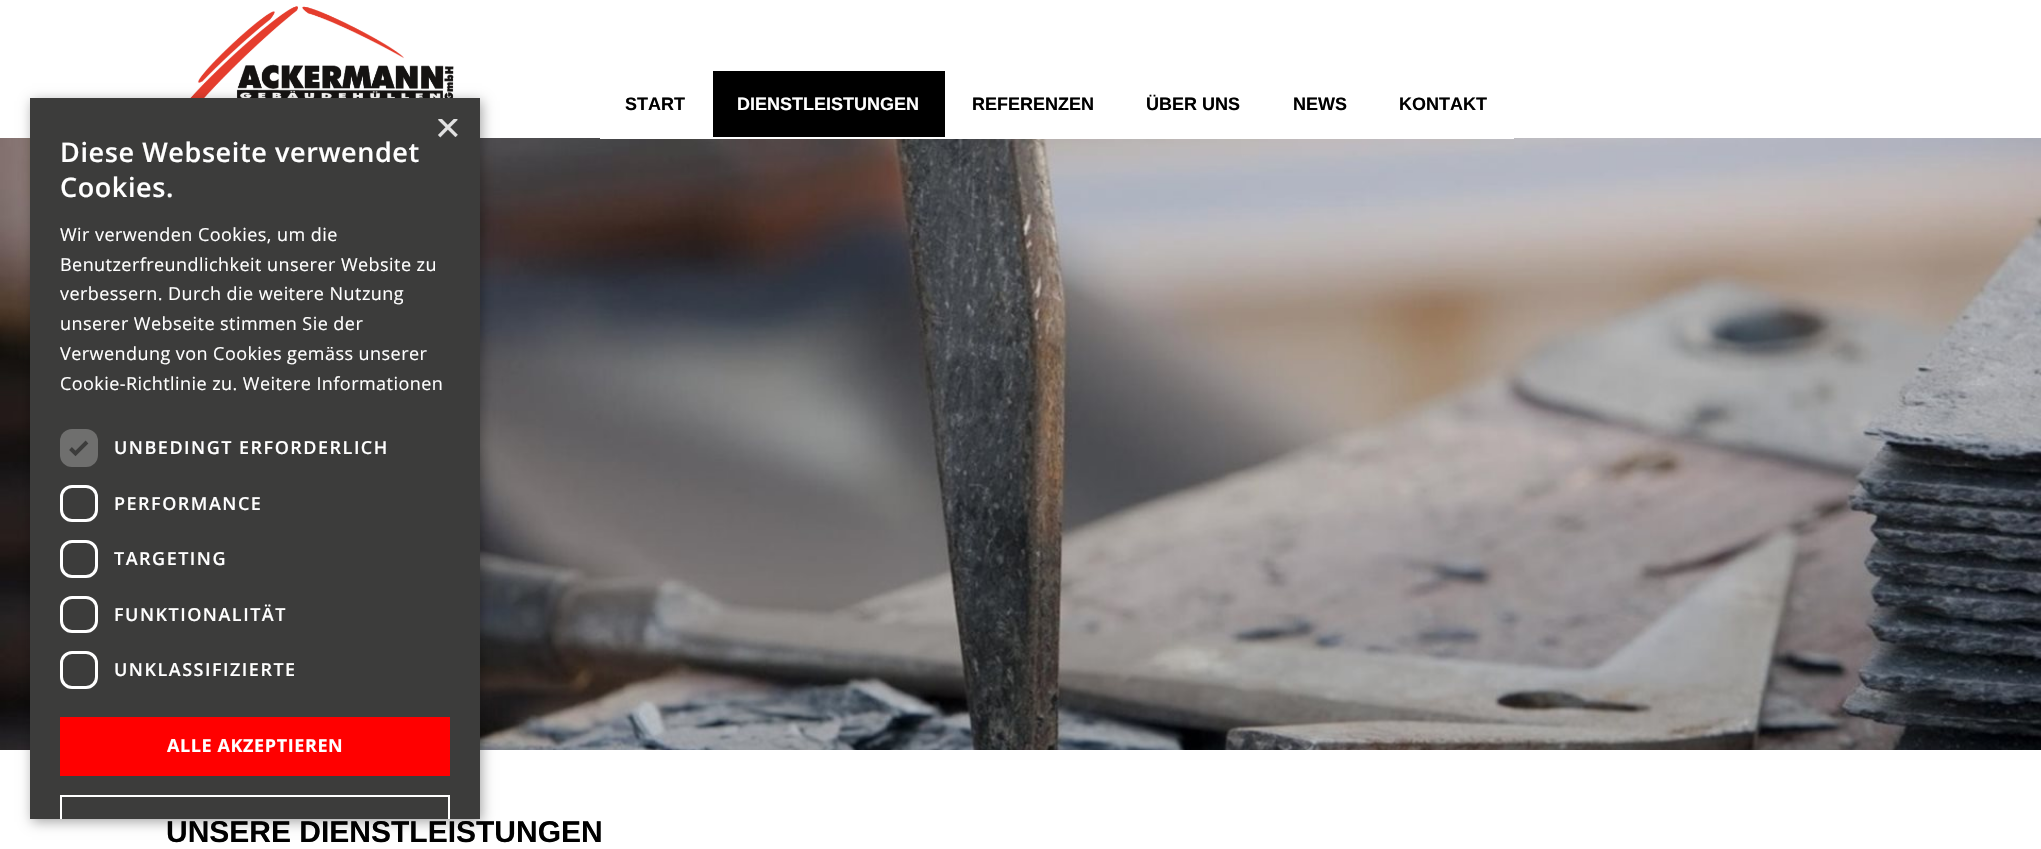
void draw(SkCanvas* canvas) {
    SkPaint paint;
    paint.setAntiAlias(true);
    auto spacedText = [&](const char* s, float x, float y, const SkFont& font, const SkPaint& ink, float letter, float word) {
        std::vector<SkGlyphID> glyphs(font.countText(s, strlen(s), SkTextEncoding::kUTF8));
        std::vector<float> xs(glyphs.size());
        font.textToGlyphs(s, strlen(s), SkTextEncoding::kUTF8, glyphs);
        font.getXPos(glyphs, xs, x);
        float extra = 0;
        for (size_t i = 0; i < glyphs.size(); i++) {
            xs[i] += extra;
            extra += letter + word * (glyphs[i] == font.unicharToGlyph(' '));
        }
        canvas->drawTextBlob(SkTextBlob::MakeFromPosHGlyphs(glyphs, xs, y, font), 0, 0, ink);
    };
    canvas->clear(0xFFFFFFFF);
    canvas->drawImageRect(SkImages::DeferredFromEncodedData(SkData::MakeFromFileName("img1.png")), SkRect::MakeXYWH(173, 6, 281, 92), SkSamplingOptions());
    canvas->drawImageRect(SkImages::DeferredFromEncodedData(SkData::MakeFromFileName("img2.png")), SkRect::MakeXYWH(0, 138, 2041, 612), SkSamplingOptions());
    paint.setColor(0xFFFFFFFF);
    canvas->drawRect(SkRect::MakeXYWH(600, 138, 914, 1), paint);
    SkFont font1(fontMgr->matchFamilyStyle("Liberation Sans", SkFontStyle::Bold()), 18);
    font1.setSubpixel(true);
    paint.setColor(0xFF000000);
    canvas->drawString("START", 625, 110, font1, paint);
    canvas->drawRect(SkRect::MakeXYWH(713, 71, 232, 66), paint);
    paint.setColor(0xFFFFFFFF);
    canvas->drawString("DIENSTLEISTUNGEN", 737, 110, font1, paint);
    paint.setColor(0xFF000000);
    canvas->drawString("REFERENZEN", 972, 110, font1, paint);
    canvas->drawString("ÜBER UNS", 1146, 110, font1, paint);
    canvas->drawString("NEWS", 1293, 110, font1, paint);
    canvas->drawString("KONTAKT", 1399, 110, font1, paint);
    SkFont font2(fontMgr->matchFamilyStyle("Liberation Sans", SkFontStyle::Bold()), 30);
    font2.setSubpixel(true);
    canvas->drawString("UNSERE DIENSTLEISTUNGEN", 166, 842, font2, paint);
    paint.setColor(0x59000000);
    paint.setMaskFilter(SkMaskFilter::MakeBlur(kNormal_SkBlurStyle, 6));
    canvas->drawRect(SkRect::MakeXYWH(32, 101, 450, 721), paint);
    paint.setMaskFilter(nullptr);
    paint.setColor(0xFF3C3C3B);
    canvas->drawRect(SkRect::MakeXYWH(30, 98, 450, 721), paint);
    canvas->save();
    canvas->clipRect(SkRect::MakeXYWH(435, 119, 23, 22));
    SkFont font3(fontMgr->matchFamilyStyle("Liberation Sans", SkFontStyle::Normal()), 44);
    font3.setSubpixel(true);
    paint.setColor(0xFFE2E2E2);
    canvas->drawString("×", 435, 142, font3, paint);
    canvas->restore();
    SkFont font4(fontMgr->matchFamilyStyle("Open Sans", SkFontStyle(600, SkFontStyle::kNormal_Width, SkFontStyle::kUpright_Slant)), 27);
    font4.setSubpixel(true);
    paint.setColor(0xFFFFFFFF);
    spacedText("Diese Webseite verwendet", 60, 162, font4, paint, 0.6f, 0);
    spacedText("Cookies.", 60, 197, font4, paint, 0.6f, 0);
    SkFont font5(fontMgr->matchFamilyStyle("Open Sans", SkFontStyle::Normal()), 18);
    font5.setSubpixel(true);
    spacedText("Wir verwenden Cookies, um die", 60, 241, font5, paint, 0.45f, 0);
    spacedText("Benutzerfreundlichkeit unserer Website zu", 60, 271, font5, paint, 0.45f, 0);
    spacedText("verbessern. Durch die weitere Nutzung", 60, 300, font5, paint, 0.45f, 0);
    spacedText("unserer Webseite stimmen Sie der", 60, 330, font5, paint, 0.45f, 0);
    spacedText("Verwendung von Cookies gemäss unserer", 60, 360, font5, paint, 0.45f, 0);
    spacedText("Cookie-Richtlinie zu. Weitere Informationen", 60, 390, font5, paint, 0.45f, 0);
    paint.setColor(0xFF6F6F6E);
    canvas->drawRoundRect(SkRect::MakeXYWH(60, 429, 38, 38), 12, 12, paint);
    paint.setStyle(SkPaint::kStroke_Style);
    paint.setStrokeWidth(3.9f);
    paint.setColor(0xFF3C3C3B);
    canvas->drawPath(SkPathBuilder().moveTo(70.5f, 448.5f).lineTo(75.5f, 453.5f).lineTo(87, 442).detach(), paint);
    SkFont font6(fontMgr->matchFamilyStyle("Open Sans", SkFontStyle(600, SkFontStyle::kNormal_Width, SkFontStyle::kUpright_Slant)), 18);
    font6.setSubpixel(true);
    paint.setStyle(SkPaint::kFill_Style);
    paint.setColor(0xFFFFFFFF);
    spacedText("UNBEDINGT ERFORDERLICH", 114, 454, font6, paint, 1.5f, 0);
    paint.setStyle(SkPaint::kStroke_Style);
    paint.setStrokeWidth(3);
    canvas->drawRoundRect(SkRect::MakeXYWH(61.5f, 486.5f, 35, 34), 10.5f, 10.5f, paint);
    paint.setStyle(SkPaint::kFill_Style);
    spacedText("PERFORMANCE", 114, 510, font6, paint, 1.5f, 0);
    paint.setStyle(SkPaint::kStroke_Style);
    canvas->drawRoundRect(SkRect::MakeXYWH(61.5f, 541.5f, 35, 35), 10.5f, 10.5f, paint);
    paint.setStyle(SkPaint::kFill_Style);
    spacedText("TARGETING", 114, 565, font6, paint, 1.5f, 0);
    paint.setStyle(SkPaint::kStroke_Style);
    canvas->drawRoundRect(SkRect::MakeXYWH(61.5f, 597.5f, 35, 34), 10.5f, 10.5f, paint);
    paint.setStyle(SkPaint::kFill_Style);
    spacedText("FUNKTIONALITÄT", 114, 621, font6, paint, 1.5f, 0);
    paint.setStyle(SkPaint::kStroke_Style);
    canvas->drawRoundRect(SkRect::MakeXYWH(61.5f, 652.5f, 35, 35), 10.5f, 10.5f, paint);
    paint.setStyle(SkPaint::kFill_Style);
    spacedText("UNKLASSIFIZIERTE", 114, 676, font6, paint, 1.5f, 0);
    paint.setColor(0xFFFF0000);
    canvas->drawRect(SkRect::MakeXYWH(60, 717, 390, 59), paint);
    SkFont font7(fontMgr->matchFamilyStyle("Open Sans", SkFontStyle::Bold()), 18);
    font7.setSubpixel(true);
    paint.setColor(0xFFFFFFFF);
    spacedText("ALLE AKZEPTIEREN", 167, 752, font7, paint, 0.6f, 0);
    canvas->save();
    canvas->clipRect(SkRect::MakeXYWH(30, 98, 450, 721));
    paint.setStyle(SkPaint::kStroke_Style);
    paint.setStrokeWidth(2);
    canvas->drawRect(SkRect::MakeXYWH(61, 796, 388, 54), paint);
    canvas->restore();
}
